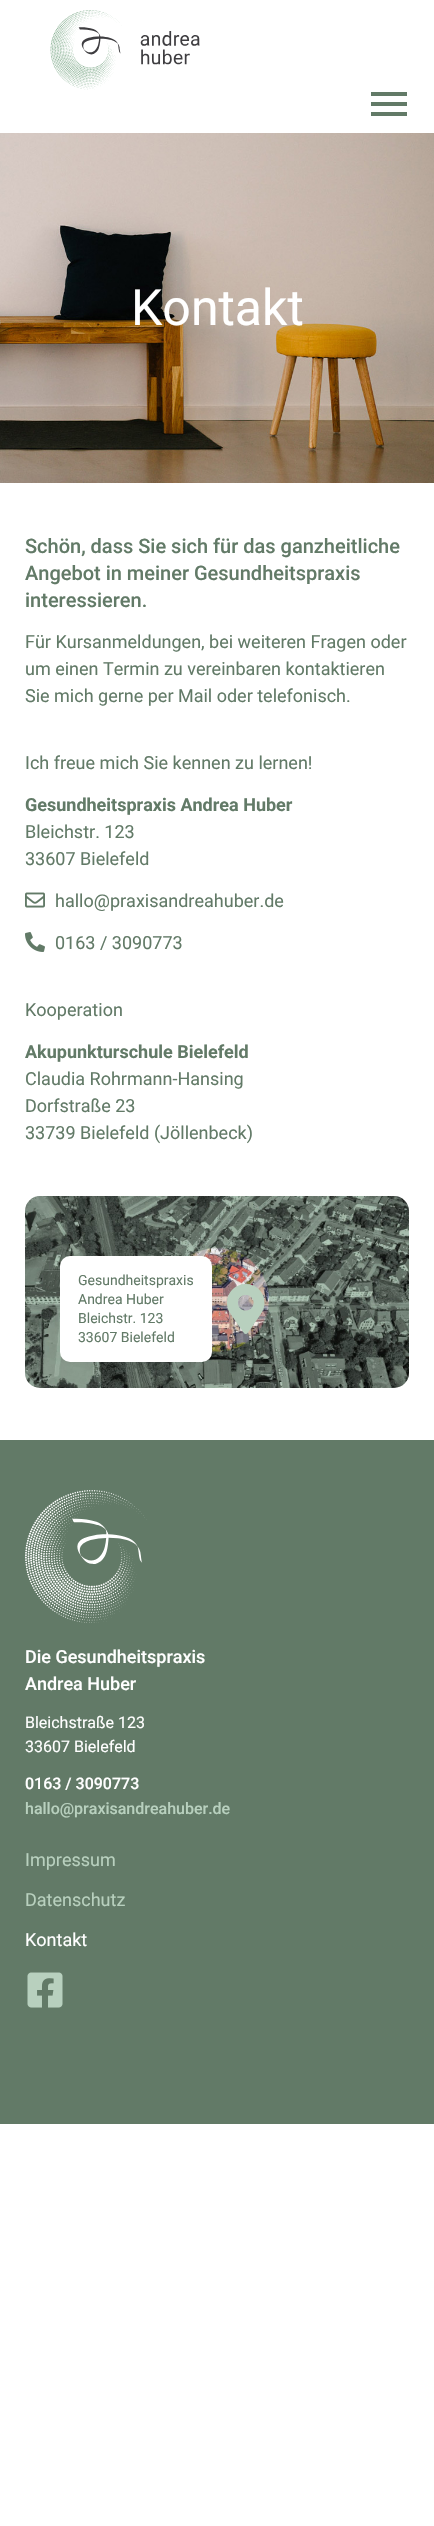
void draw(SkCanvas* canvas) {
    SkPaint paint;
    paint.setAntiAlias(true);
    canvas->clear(0xFFFFFFFF);
    canvas->drawImageRect(SkImages::DeferredFromEncodedData(SkData::MakeFromFileName("img1.png")), SkRect::MakeXYWH(50, 10, 150, 80), SkSamplingOptions());
    paint.setColor(0xFF627A67);
    canvas->drawRect(SkRect::MakeXYWH(371, 92, 36, 4), paint);
    canvas->drawRect(SkRect::MakeXYWH(371, 102, 36, 4), paint);
    canvas->drawRect(SkRect::MakeXYWH(371, 112, 36, 4), paint);
    canvas->drawImageRect(SkImages::DeferredFromEncodedData(SkData::MakeFromFileName("img2.png")), SkRect::MakeXYWH(0, 133, 434, 350), SkSamplingOptions());
    SkFont font1(fontMgr->matchFamilyStyle("Roboto", SkFontStyle::Normal()), 50);
    font1.setSubpixel(true);
    paint.setColor(0xFFFFFFFF);
    canvas->drawString("Kontakt", 131, 325, font1, paint);
    SkFont font2(fontMgr->matchFamilyStyle("Roboto", SkFontStyle(500, SkFontStyle::kNormal_Width, SkFontStyle::kUpright_Slant)), 20);
    font2.setSubpixel(true);
    paint.setColor(0xFF627A67);
    canvas->drawString("Schön, dass Sie sich für das ganzheitliche", 25, 553, font2, paint);
    canvas->drawString("Angebot in meiner Gesundheitspraxis", 25, 580, font2, paint);
    canvas->drawString("interessieren.", 25, 607, font2, paint);
    SkFont font3(fontMgr->matchFamilyStyle("Roboto", SkFontStyle::Normal()), 18);
    font3.setSubpixel(true);
    canvas->drawString("Für Kursanmeldungen, bei weiteren Fragen oder", 25, 648, font3, paint);
    canvas->drawString("um einen Termin zu vereinbaren kontaktieren", 25, 675, font3, paint);
    canvas->drawString("Sie mich gerne per Mail oder telefonisch.", 25, 702, font3, paint);
    canvas->drawString("Ich freue mich Sie kennen zu lernen!", 25, 769, font3, paint);
    SkFont font4(fontMgr->matchFamilyStyle("Roboto", SkFontStyle::Bold()), 18);
    font4.setSubpixel(true);
    canvas->drawString("Gesundheitspraxis Andrea Huber", 25, 811, font4, paint);
    canvas->drawString("Bleichstr. 123", 25, 838, font3, paint);
    canvas->drawString("33607 Bielefeld", 25, 865, font3, paint);
    canvas->drawImageRect(SkImages::DeferredFromEncodedData(SkData::MakeFromFileName("img3.png")), SkRect::MakeXYWH(25, 892, 20, 16), SkSamplingOptions());
    canvas->drawString("hallo@praxisandreahuber.de", 55, 907, font3, paint);
    canvas->drawImageRect(SkImages::DeferredFromEncodedData(SkData::MakeFromFileName("img4.png")), SkRect::MakeXYWH(25, 932, 20, 20), SkSamplingOptions());
    canvas->drawString("0163 / 3090773", 55, 949, font3, paint);
    canvas->drawString("Kooperation", 25, 1016, font3, paint);
    canvas->drawString("Akupunkturschule Bielefeld", 25, 1058, font4, paint);
    canvas->drawString("Claudia Rohrmann-Hansing", 25, 1085, font3, paint);
    canvas->drawString("Dorfstraße 23", 25, 1112, font3, paint);
    canvas->drawString("33739 Bielefeld (Jöllenbeck)", 25, 1139, font3, paint);
    canvas->drawImageRect(SkImages::DeferredFromEncodedData(SkData::MakeFromFileName("img5.png")), SkRect::MakeXYWH(25, 1196, 384, 192), SkSamplingOptions());
    paint.setColor(0xFFFFFFFF);
    canvas->drawRoundRect(SkRect::MakeXYWH(60, 1256, 152, 106), 10, 10, paint);
    SkFont font5(fontMgr->matchFamilyStyle("Roboto", SkFontStyle::Normal()), 14);
    font5.setSubpixel(true);
    paint.setColor(0xFF627A67);
    canvas->drawString("Gesundheitspraxis", 78, 1285, font5, paint);
    canvas->drawString("Andrea Huber", 78, 1304, font5, paint);
    canvas->drawString("Bleichstr. 123", 78, 1323, font5, paint);
    canvas->drawString("33607 Bielefeld", 78, 1342, font5, paint);
    canvas->drawImageRect(SkImages::DeferredFromEncodedData(SkData::MakeFromFileName("img6.png")), SkRect::MakeXYWH(227, 1284, 38, 50), SkSamplingOptions());
    canvas->drawRect(SkRect::MakeXYWH(0, 1440, 434, 684), paint);
    canvas->drawImageRect(SkImages::DeferredFromEncodedData(SkData::MakeFromFileName("img7.png")), SkRect::MakeXYWH(25, 1490, 122, 133), SkSamplingOptions());
    SkFont font6(fontMgr->matchFamilyStyle("Roboto", SkFontStyle(500, SkFontStyle::kNormal_Width, SkFontStyle::kUpright_Slant)), 18);
    font6.setSubpixel(true);
    paint.setColor(0xFFFFFFFF);
    canvas->drawString("Die Gesundheitspraxis", 25, 1663, font6, paint);
    canvas->drawString("Andrea Huber", 25, 1690, font6, paint);
    SkFont font7(fontMgr->matchFamilyStyle("Roboto", SkFontStyle::Normal()), 16);
    font7.setSubpixel(true);
    canvas->drawString("Bleichstraße 123", 25, 1728, font7, paint);
    canvas->drawString("33607 Bielefeld", 25, 1752, font7, paint);
    SkFont font8(fontMgr->matchFamilyStyle("Roboto", SkFontStyle(500, SkFontStyle::kNormal_Width, SkFontStyle::kUpright_Slant)), 16);
    font8.setSubpixel(true);
    canvas->drawString("0163 / 3090773", 25, 1789, font8, paint);
    paint.setColor(0xFFB8D0BE);
    canvas->drawString("hallo@praxisandreahuber.de", 25, 1814, font8, paint);
    canvas->drawString("Impressum", 25, 1866, font3, paint);
    canvas->drawString("Datenschutz", 25, 1906, font3, paint);
    paint.setColor(0xFFFFFFFF);
    canvas->drawString("Kontakt", 25, 1946, font3, paint);
    canvas->drawImageRect(SkImages::DeferredFromEncodedData(SkData::MakeFromFileName("img8.png")), SkRect::MakeXYWH(27, 1972, 36, 36), SkSamplingOptions());
}
